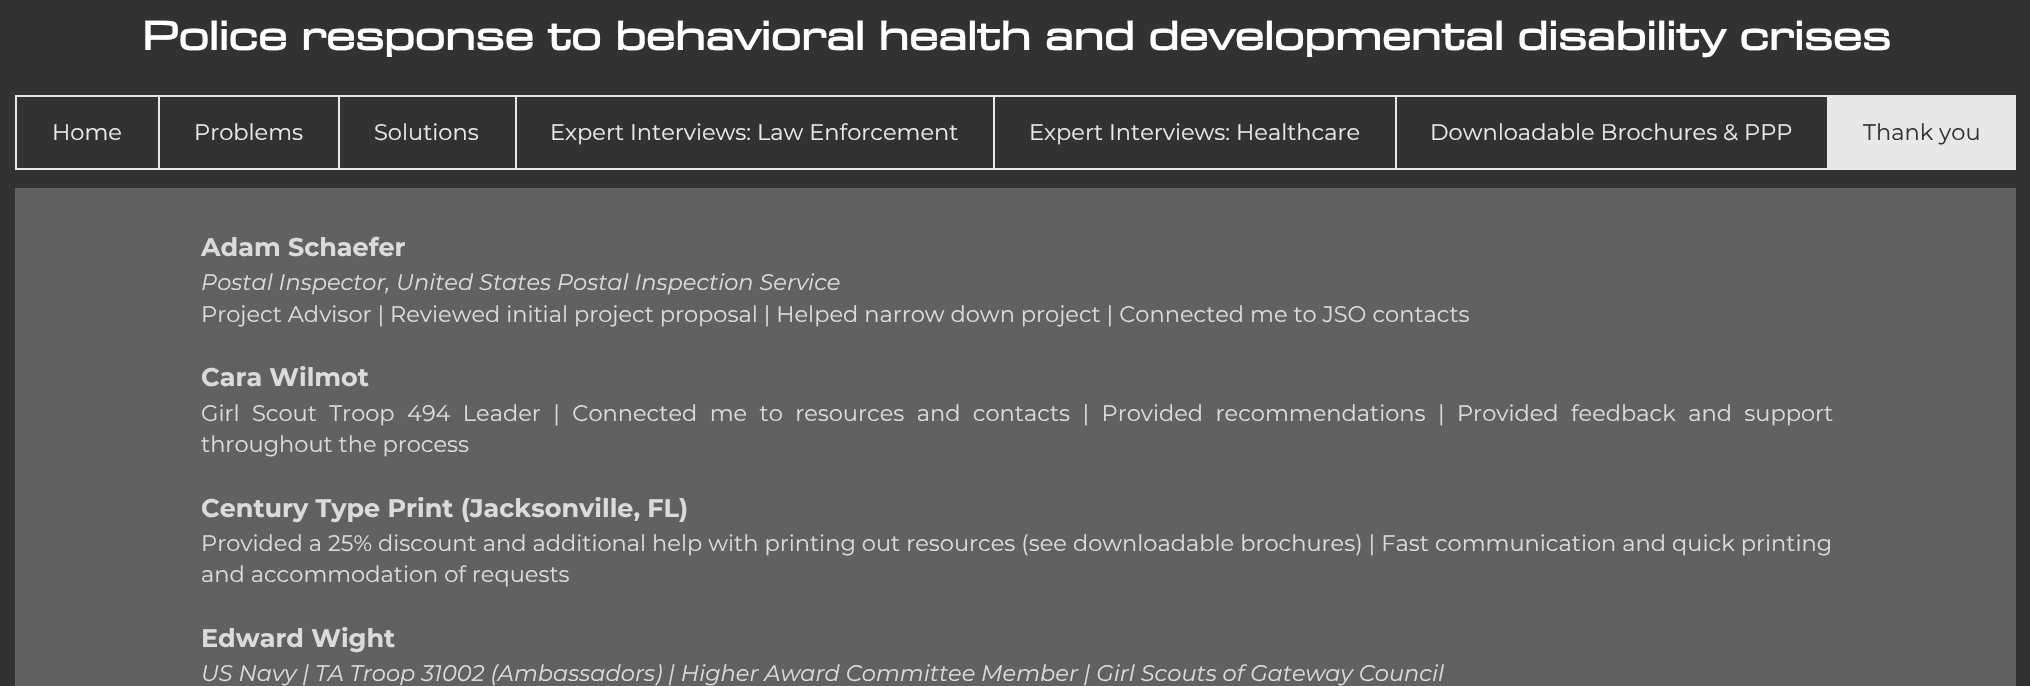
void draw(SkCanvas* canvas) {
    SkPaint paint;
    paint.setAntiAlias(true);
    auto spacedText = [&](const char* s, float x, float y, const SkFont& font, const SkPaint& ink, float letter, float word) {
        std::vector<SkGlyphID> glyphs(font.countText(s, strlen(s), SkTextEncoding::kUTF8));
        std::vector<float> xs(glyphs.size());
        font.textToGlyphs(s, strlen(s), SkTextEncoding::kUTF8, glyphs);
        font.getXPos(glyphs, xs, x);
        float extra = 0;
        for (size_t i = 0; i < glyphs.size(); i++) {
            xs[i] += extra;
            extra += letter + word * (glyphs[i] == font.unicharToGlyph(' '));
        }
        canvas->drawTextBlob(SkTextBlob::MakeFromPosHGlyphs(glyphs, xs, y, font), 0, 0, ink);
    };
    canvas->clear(0xFF323232);
    SkFont font1(fontMgr->matchFamilyStyle("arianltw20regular", SkFontStyle::Bold()), 49.5f);
    font1.setSubpixel(true);
    paint.setColor(0xFFFFFFFF);
    canvas->drawString("Police response to behavioral health and developmental disability crises", 142, 50, font1, paint);
    paint.setStyle(SkPaint::kStroke_Style);
    paint.setStrokeWidth(2);
    paint.setColor(0xFFE8E8E8);
    canvas->drawRect(SkRect::MakeXYWH(16, 96, 1999, 73), paint);
    SkFont font2(fontMgr->matchFamilyStyle("Montserrat", SkFontStyle::Normal()), 22.5f);
    font2.setSubpixel(true);
    paint.setStyle(SkPaint::kFill_Style);
    canvas->drawString("Home", 52, 140, font2, paint);
    canvas->drawRect(SkRect::MakeXYWH(158, 96, 2, 72), paint);
    canvas->drawString("Problems", 194, 140, font2, paint);
    canvas->drawRect(SkRect::MakeXYWH(338, 96, 2, 72), paint);
    canvas->drawString("Solutions", 374, 140, font2, paint);
    canvas->drawRect(SkRect::MakeXYWH(515, 96, 2, 72), paint);
    canvas->drawString("Expert Interviews: Law Enforcement", 550, 140, font2, paint);
    canvas->drawRect(SkRect::MakeXYWH(993, 96, 2, 72), paint);
    canvas->drawString("Expert Interviews: Healthcare", 1029, 140, font2, paint);
    canvas->drawRect(SkRect::MakeXYWH(1395, 96, 2, 72), paint);
    canvas->drawString("Downloadable Brochures & PPP", 1430, 140, font2, paint);
    canvas->drawRect(SkRect::MakeXYWH(1827, 97, 187, 71), paint);
    paint.setColor(0xFF323232);
    canvas->drawString("Thank you", 1863, 140, font2, paint);
    paint.setColor(0xFF616161);
    canvas->drawRect(SkRect::MakeXYWH(15, 188, 2001, 498), paint);
    SkFont font3(fontMgr->matchFamilyStyle("Montserrat", SkFontStyle::Bold()), 25.5f);
    font3.setSubpixel(true);
    paint.setColor(0xFFDBDBDB);
    canvas->drawString("Adam Schaefer", 201, 256, font3, paint);
    SkFont font4(fontMgr->matchFamilyStyle("Montserrat", SkFontStyle::Italic()), 22.5f);
    font4.setSubpixel(true);
    canvas->drawString("Postal Inspector, United States Postal Inspection Service", 201, 290, font4, paint);
    canvas->drawString("Project Advisor | Reviewed initial project proposal | Helped narrow down project | Connected me to JSO contacts", 201, 322, font2, paint);
    canvas->drawString("Cara Wilmot", 201, 386, font3, paint);
    spacedText("Girl Scout Troop 494 Leader | Connected me to resources and contacts | Provided recommendations | Provided feedback and support", 201, 421, font2, paint, 0, 6.5f);
    canvas->drawString("throughout the process", 201, 452, font2, paint);
    canvas->drawString("Century Type Print (Jacksonville, FL)", 201, 517, font3, paint);
    spacedText("Provided a 25% discount and additional help with printing out resources (see downloadable brochures) | Fast communication and quick printing", 201, 551, font2, paint, 0, 0.1f);
    canvas->drawString("and accommodation of requests", 201, 582, font2, paint);
    canvas->drawString("Edward Wight", 201, 647, font3, paint);
    canvas->drawString("US Navy | TA Troop 31002 (Ambassadors) | Higher Award Committee Member | Girl Scouts of Gateway Council", 201, 681, font4, paint);
}
